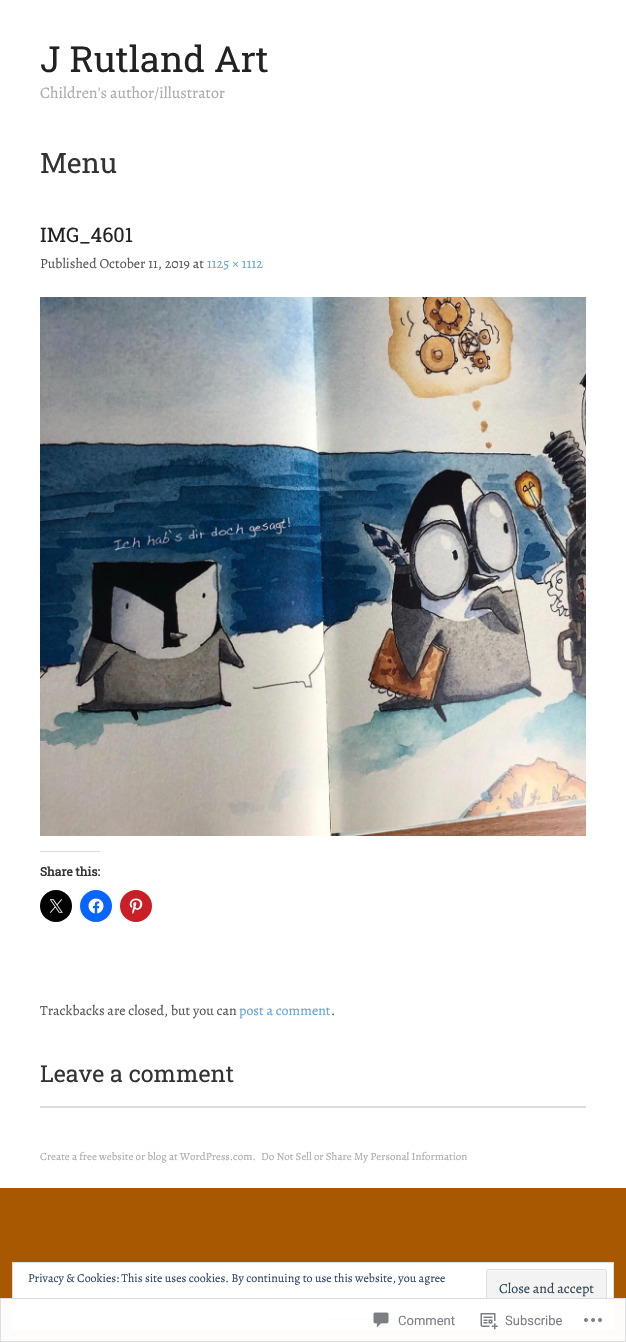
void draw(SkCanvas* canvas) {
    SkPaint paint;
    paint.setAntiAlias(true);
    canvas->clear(0xFFA85900);
    paint.setColor(0xFFFFFFFF);
    canvas->drawRect(SkRect::MakeXYWH(0, 0, 626, 1188), paint);
    SkFont font1(fontMgr->matchFamilyStyle("Roboto Slab", SkFontStyle::Normal()), 36);
    font1.setSubpixel(true);
    paint.setColor(0xFF222222);
    canvas->drawString("J Rutland Art", 40, 72, font1, paint);
    SkFont font2(fontMgr->matchFamilyStyle("Alegreya", SkFontStyle::Normal()), 16);
    font2.setSubpixel(true);
    paint.setColor(0xFFAAAAAA);
    canvas->drawString("Children's author/illustrator", 40, 98, font2, paint);
    SkFont font3(fontMgr->matchFamilyStyle("Roboto Slab", SkFontStyle::Normal()), 28);
    font3.setSubpixel(true);
    paint.setColor(0xFF333333);
    canvas->drawString("Menu", 40, 173, font3, paint);
    SkFont font4(fontMgr->matchFamilyStyle("Roboto Slab", SkFontStyle::Normal()), 20);
    font4.setSubpixel(true);
    paint.setColor(0xFF222222);
    canvas->drawString("IMG_4601", 40, 242, font4, paint);
    SkFont font5(fontMgr->matchFamilyStyle("Alegreya", SkFontStyle::Normal()), 14);
    font5.setSubpixel(true);
    paint.setColor(0xFF555555);
    canvas->drawString("Published October 11, 2019 at", 40, 268, font5, paint);
    paint.setColor(0xFF64A2D8);
    canvas->drawString("1125 × 1112", 207, 268, font5, paint);
    canvas->drawImageRect(SkImages::DeferredFromEncodedData(SkData::MakeFromFileName("img1.png")), SkRect::MakeXYWH(40, 297, 546, 539), SkSamplingOptions());
    paint.setColor(0xFFDCDCDE);
    canvas->drawRect(SkRect::MakeXYWH(40, 851, 60, 1), paint);
    SkFont font6(fontMgr->matchFamilyStyle("Roboto Slab", SkFontStyle::Bold()), 12);
    font6.setSubpixel(true);
    paint.setColor(0xFF333333);
    canvas->drawString("Share this:", 40, 876, font6, paint);
    paint.setColor(0xFF000000);
    canvas->drawCircle(56, 906, 16, paint);
    canvas->drawImageRect(SkImages::DeferredFromEncodedData(SkData::MakeFromFileName("img2.png")), SkRect::MakeXYWH(49, 899, 14, 14), SkSamplingOptions());
    paint.setColor(0xFF0866FF);
    canvas->drawCircle(96, 906, 16, paint);
    canvas->drawImageRect(SkImages::DeferredFromEncodedData(SkData::MakeFromFileName("img3.png")), SkRect::MakeXYWH(88, 898, 16, 16), SkSamplingOptions());
    paint.setColor(0xFFCA1F27);
    canvas->drawCircle(136, 906, 16, paint);
    canvas->drawImageRect(SkImages::DeferredFromEncodedData(SkData::MakeFromFileName("img4.png")), SkRect::MakeXYWH(129, 898, 14, 16), SkSamplingOptions());
    paint.setColor(0xFF555555);
    canvas->drawString("Trackbacks are closed, but you can", 40, 1015, font5, paint);
    paint.setColor(0xFF64A2D8);
    canvas->drawString("post a comment", 239, 1015, font5, paint);
    paint.setColor(0xFF555555);
    canvas->drawString(".", 331, 1015, font5, paint);
    SkFont font7(fontMgr->matchFamilyStyle("Roboto Slab", SkFontStyle::Normal()), 23.25f);
    font7.setSubpixel(true);
    paint.setColor(0xFF333333);
    canvas->drawString("Leave a comment", 40, 1082, font7, paint);
    paint.setColor(0xFFDCDCDE);
    canvas->drawRect(SkRect::MakeXYWH(40, 1106, 546, 2), paint);
    SkFont font8(fontMgr->matchFamilyStyle("Alegreya", SkFontStyle::Normal()), 11);
    font8.setSubpixel(true);
    paint.setColor(0xFFAAAAAA);
    canvas->drawString("Create a free website or blog at WordPress.com.", 40, 1160, font8, paint);
    canvas->drawString("Do Not Sell or Share My Personal Information", 261, 1160, font8, paint);
    paint.setColor(0xFFFFFFFF);
    canvas->drawRect(SkRect::MakeXYWH(12.5f, 1262.5f, 601, 67), paint);
    paint.setStyle(SkPaint::kStroke_Style);
    paint.setStrokeWidth(1);
    paint.setColor(0xFFDEDEDE);
    canvas->drawRect(SkRect::MakeXYWH(12.5f, 1262.5f, 601, 67), paint);
    SkFont font9(fontMgr->matchFamilyStyle("Alegreya", SkFontStyle::Normal()), 12);
    font9.setSubpixel(true);
    paint.setStyle(SkPaint::kFill_Style);
    paint.setColor(0xFF2E4467);
    canvas->drawString("Privacy & Cookies: This site uses cookies. By continuing to use this website, you agree", 28, 1282, font9, paint);
    paint.setColor(0xFFF3F3F3);
    canvas->drawRoundRect(SkRect::MakeXYWH(486, 1269, 121, 39), 3, 3, paint);
    paint.setColor(0xFFF9F9F9);
    canvas->drawPath(SkPathBuilder().moveTo(489, 1271).lineTo(604, 1271).cubicTo(605, 1271, 606, 1272, 606, 1273).cubicTo(606, 1266, 591, 1270, 585, 1270).lineTo(488, 1270).cubicTo(487, 1271, 487, 1272, 487, 1273).cubicTo(487, 1272, 488, 1271, 489, 1271).close().detach(), paint);
    paint.setStyle(SkPaint::kStroke_Style);
    paint.setColor(0xFFDEDEDE);
    canvas->drawRoundRect(SkRect::MakeXYWH(486.5f, 1269.5f, 120, 38), 2.5f, 2.5f, paint);
    paint.setStyle(SkPaint::kFill_Style);
    paint.setColor(0xFF2E4453);
    canvas->drawString("Close and accept", 499, 1293, font5, paint);
    paint.setColor(0xFF2E4467);
    canvas->drawRect(SkRect::MakeXYWH(326, 1319, 66, 1), paint);
    paint.setColor(0xFAFFFFFF);
    canvas->drawRect(SkRect::MakeXYWH(0, 1298, 626, 44), paint);
    paint.setStyle(SkPaint::kStroke_Style);
    paint.setColor(0xFADCDCDE);
    canvas->drawRect(SkRect::MakeXYWH(0.5f, 1298.5f, 625, 43), paint);
    canvas->drawImageRect(SkImages::DeferredFromEncodedData(SkData::MakeFromFileName("img5.png")), SkRect::MakeXYWH(373, 1312, 16, 16), SkSamplingOptions());
    SkFont font10(fontMgr->matchFamilyStyle("Roboto", SkFontStyle::Normal()), 13);
    font10.setSubpixel(true);
    paint.setStyle(SkPaint::kFill_Style);
    paint.setColor(0xFF7B7F85);
    canvas->drawString("Comment", 398, 1325, font10, paint);
    canvas->drawImageRect(SkImages::DeferredFromEncodedData(SkData::MakeFromFileName("img6.png")), SkRect::MakeXYWH(480, 1313, 18, 17), SkSamplingOptions());
    canvas->drawString("Subscribe", 505, 1325, font10, paint);
    canvas->drawImageRect(SkImages::DeferredFromEncodedData(SkData::MakeFromFileName("img7.png")), SkRect::MakeXYWH(584, 1318, 18, 4), SkSamplingOptions());
}
